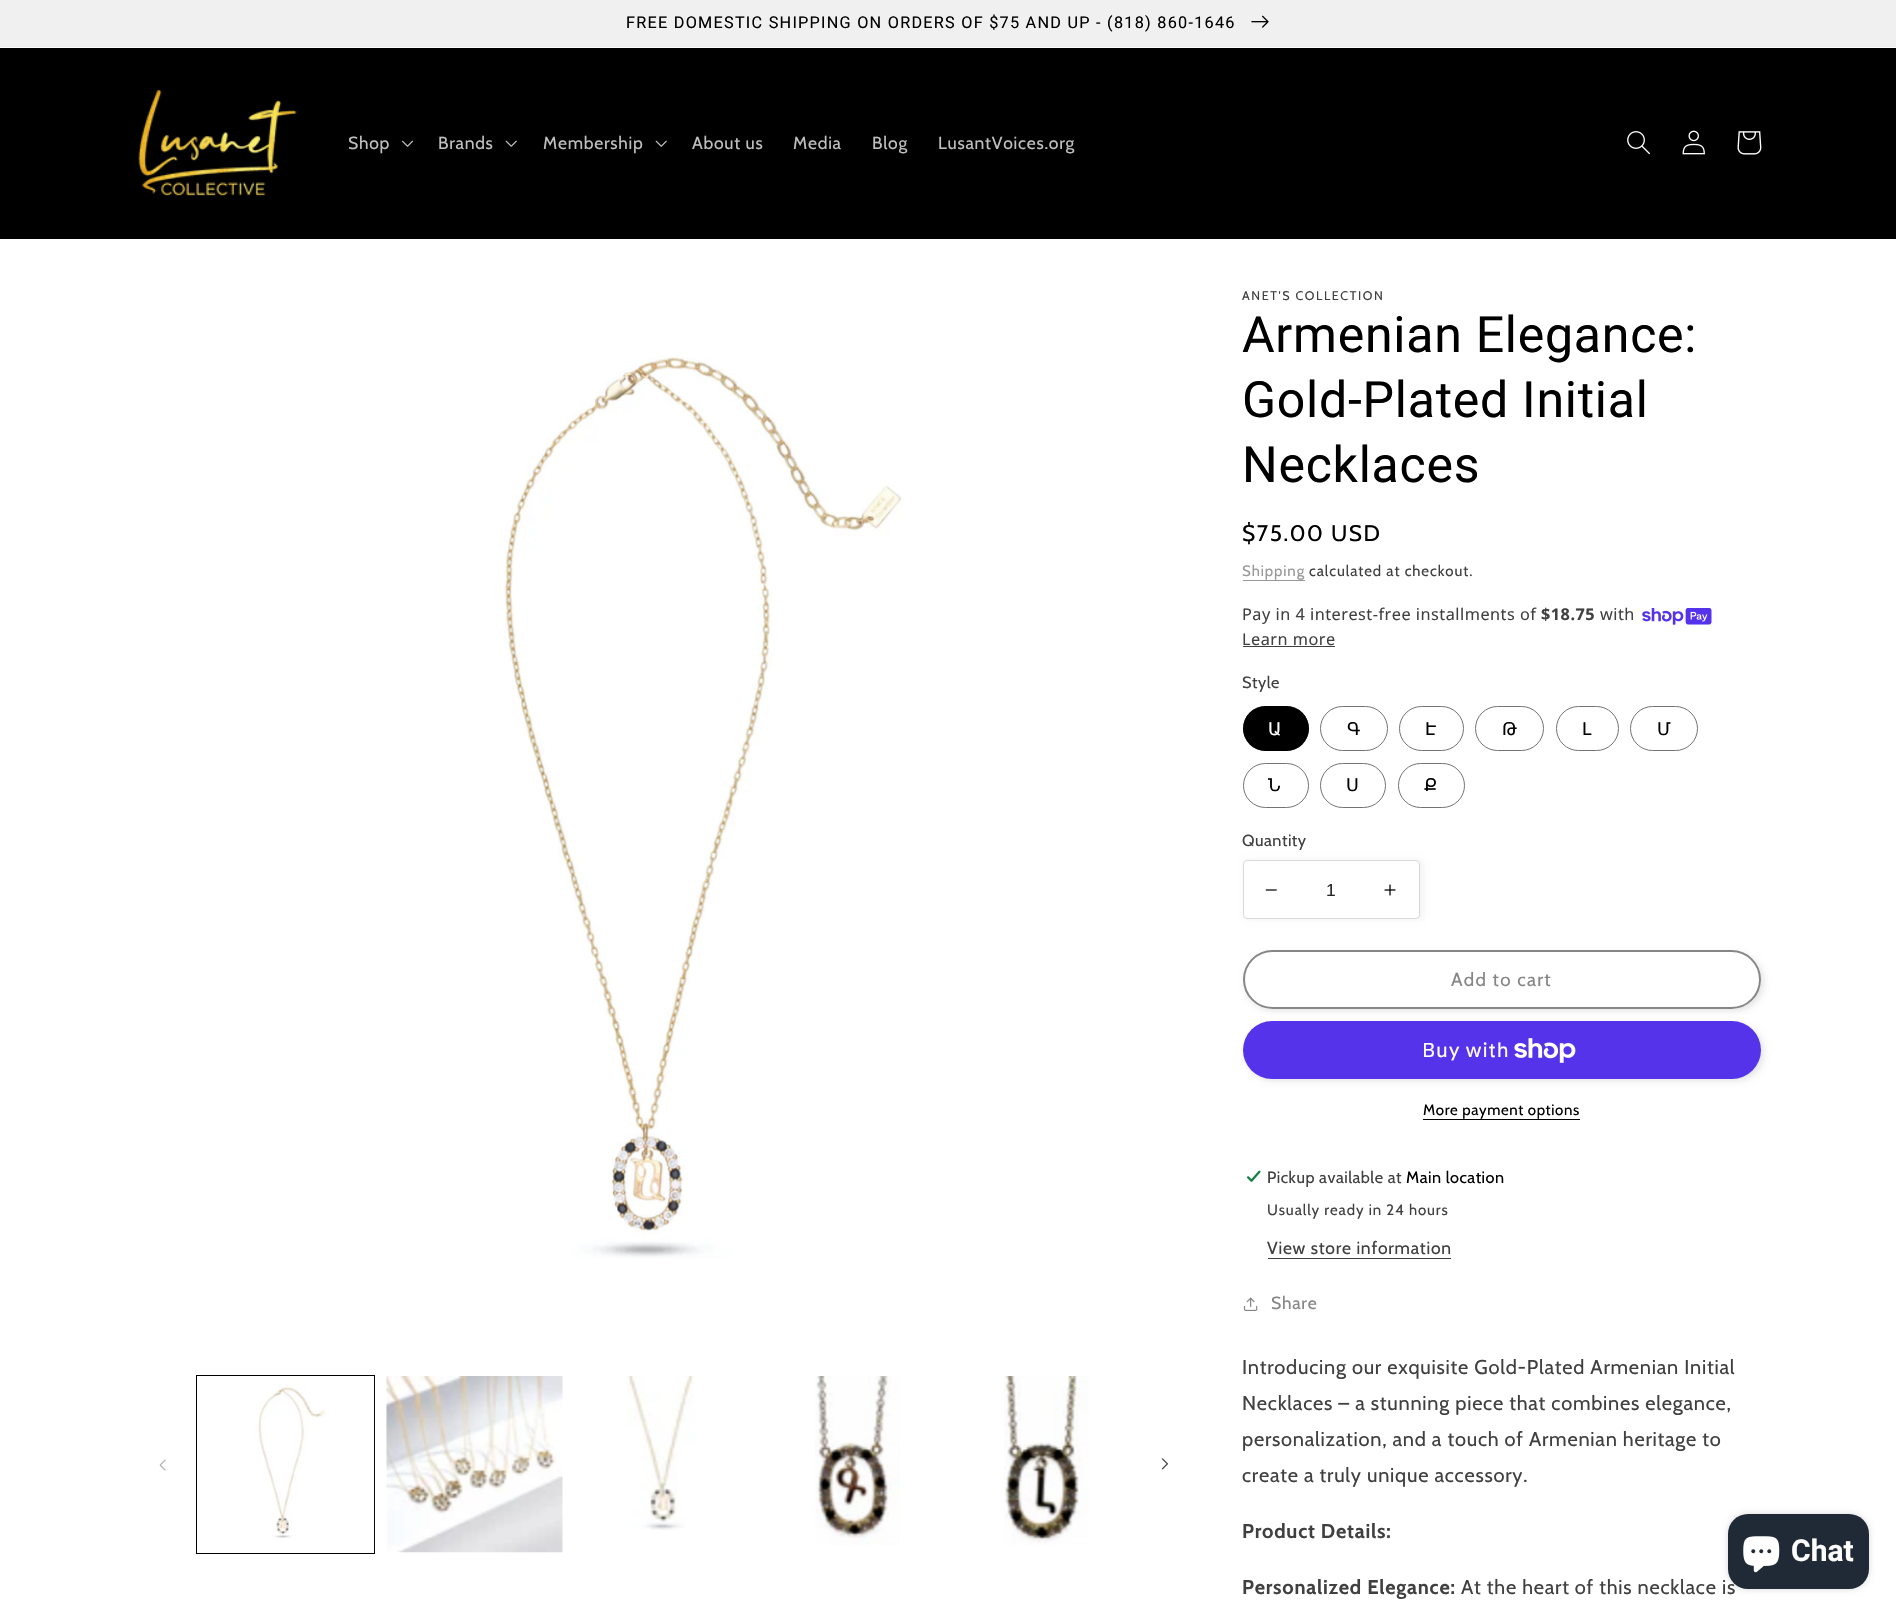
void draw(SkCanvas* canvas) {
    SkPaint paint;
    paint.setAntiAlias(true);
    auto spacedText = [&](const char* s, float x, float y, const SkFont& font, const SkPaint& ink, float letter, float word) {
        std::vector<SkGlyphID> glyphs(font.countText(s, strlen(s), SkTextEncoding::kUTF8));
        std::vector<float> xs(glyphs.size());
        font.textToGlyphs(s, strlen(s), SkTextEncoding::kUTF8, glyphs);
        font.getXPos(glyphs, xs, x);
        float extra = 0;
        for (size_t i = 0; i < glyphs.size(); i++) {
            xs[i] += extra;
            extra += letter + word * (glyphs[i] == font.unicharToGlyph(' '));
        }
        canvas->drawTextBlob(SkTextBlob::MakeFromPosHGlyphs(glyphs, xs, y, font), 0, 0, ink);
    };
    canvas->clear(0xFFFFFFFF);
    paint.setColor(0xFFEBEBEB);
    canvas->drawRect(SkRect::MakeXYWH(0, 46, 1896, 1), paint);
    paint.setColor(0xFFF0F0F0);
    canvas->drawRect(SkRect::MakeXYWH(0, 0, 1896, 46), paint);
    SkFont font1(fontMgr->matchFamilyStyle("Roboto", SkFontStyle::Normal()), 16.25f);
    font1.setSubpixel(true);
    paint.setColor(0xFF000000);
    spacedText("FREE DOMESTIC SHIPPING ON ORDERS OF $75 AND UP - (818) 860-1646", 626, 28, font1, paint, 1.25f, 0);
    canvas->drawImageRect(SkImages::DeferredFromEncodedData(SkData::MakeFromFileName("img1.png")), SkRect::MakeXYWH(1251, 15, 18, 13), SkSamplingOptions());
    canvas->drawRect(SkRect::MakeXYWH(0, 48, 1896, 191), paint);
    canvas->drawImageRect(SkImages::DeferredFromEncodedData(SkData::MakeFromFileName("img2.png")), SkRect::MakeXYWH(138, 89, 159, 107), SkSamplingOptions());
    SkFont font2(fontMgr->matchFamilyStyle("Cabin", SkFontStyle::Normal()), 17.5f);
    font2.setSubpixel(true);
    paint.setColor(0xFFBFBFBF);
    spacedText("Shop", 348, 149, font2, paint, 0.75f, 0);
    canvas->drawImageRect(SkImages::DeferredFromEncodedData(SkData::MakeFromFileName("img3.png")), SkRect::MakeXYWH(401, 140, 13, 7), SkSamplingOptions());
    spacedText("Brands", 438, 149, font2, paint, 0.75f, 0);
    canvas->drawImageRect(SkImages::DeferredFromEncodedData(SkData::MakeFromFileName("img4.png")), SkRect::MakeXYWH(505, 140, 12, 7), SkSamplingOptions());
    spacedText("Membership", 543, 149, font2, paint, 0.75f, 0);
    canvas->drawImageRect(SkImages::DeferredFromEncodedData(SkData::MakeFromFileName("img4.png")), SkRect::MakeXYWH(655, 140, 12, 7), SkSamplingOptions());
    spacedText("About us", 692, 149, font2, paint, 0.75f, 0);
    spacedText("Media", 793, 149, font2, paint, 0.75f, 0);
    spacedText("Blog", 872, 149, font2, paint, 0.75f, 0);
    spacedText("LusantVoices.org", 938, 149, font2, paint, 0.75f, 0);
    canvas->drawImageRect(SkImages::DeferredFromEncodedData(SkData::MakeFromFileName("img5.png")), SkRect::MakeXYWH(1627, 131, 23, 24), SkSamplingOptions());
    canvas->drawImageRect(SkImages::DeferredFromEncodedData(SkData::MakeFromFileName("img6.png")), SkRect::MakeXYWH(1682, 130, 23, 25), SkSamplingOptions());
    canvas->drawImageRect(SkImages::DeferredFromEncodedData(SkData::MakeFromFileName("img7.png")), SkRect::MakeXYWH(1737, 131, 25, 24), SkSamplingOptions());
    canvas->drawImageRect(SkImages::DeferredFromEncodedData(SkData::MakeFromFileName("img8.png")), SkRect::MakeXYWH(504, 357, 399, 902), SkSamplingOptions());
    canvas->drawImageRect(SkImages::DeferredFromEncodedData(SkData::MakeFromFileName("img9.png")), SkRect::MakeXYWH(159, 1459, 7, 12), SkSamplingOptions());
    paint.setStyle(SkPaint::kStroke_Style);
    paint.setStrokeWidth(1);
    paint.setColor(0xFF000000);
    canvas->drawRect(SkRect::MakeXYWH(196.5f, 1375.5f, 178, 178), paint);
    canvas->drawImageRect(SkImages::DeferredFromEncodedData(SkData::MakeFromFileName("img10.png")), SkRect::MakeXYWH(258, 1376, 117, 176), SkSamplingOptions());
    canvas->drawImageRect(SkImages::DeferredFromEncodedData(SkData::MakeFromFileName("img11.png")), SkRect::MakeXYWH(386, 1376, 177, 177), SkSamplingOptions());
    canvas->drawImageRect(SkImages::DeferredFromEncodedData(SkData::MakeFromFileName("img12.png")), SkRect::MakeXYWH(627, 1376, 69, 154), SkSamplingOptions());
    canvas->drawImageRect(SkImages::DeferredFromEncodedData(SkData::MakeFromFileName("img13.png")), SkRect::MakeXYWH(815, 1376, 85, 169), SkSamplingOptions());
    canvas->drawImageRect(SkImages::DeferredFromEncodedData(SkData::MakeFromFileName("img14.png")), SkRect::MakeXYWH(1004, 1376, 85, 169), SkSamplingOptions());
    canvas->drawImageRect(SkImages::DeferredFromEncodedData(SkData::MakeFromFileName("img15.png")), SkRect::MakeXYWH(1161, 1458, 7, 12), SkSamplingOptions());
    SkFont font3(fontMgr->matchFamilyStyle("Cabin", SkFontStyle::Normal()), 12.5f);
    font3.setSubpixel(true);
    paint.setStyle(SkPaint::kFill_Style);
    paint.setColor(0xFF404040);
    spacedText("ANET'S COLLECTION", 1242, 300, font3, paint, 1.6f, 0);
    SkFont font4(fontMgr->matchFamilyStyle("Roboto", SkFontStyle::Normal()), 50);
    font4.setSubpixel(true);
    paint.setColor(0xFF000000);
    spacedText("Armenian Elegance:", 1242, 352, font4, paint, 0.75f, 0);
    spacedText("Gold-Plated Initial", 1242, 417, font4, paint, 0.75f, 0);
    spacedText("Necklaces", 1242, 482, font4, paint, 0.75f, 0);
    SkFont font5(fontMgr->matchFamilyStyle("Cabin", SkFontStyle::Normal()), 22.5f);
    font5.setSubpixel(true);
    spacedText("$75.00 USD", 1242, 541, font5, paint, 1.6f, 0);
    SkFont font6(fontMgr->matchFamilyStyle("Cabin", SkFontStyle::Normal()), 15);
    font6.setSubpixel(true);
    paint.setColor(0xFF989898);
    spacedText("Shipping", 1242, 576, font6, paint, 0.9f, 0);
    canvas->drawRect(SkRect::MakeXYWH(1243, 580, 62, 1), paint);
    paint.setColor(0xFF404040);
    spacedText("calculated at checkout.", 1309, 576, font6, paint, 0.9f, 0);
    SkFont font7(fontMgr->matchFamilyStyle("Noto Sans", SkFontStyle::Normal()), 16.25f);
    font7.setSubpixel(true);
    spacedText("Pay in 4 interest-free installments of", 1242, 620, font7, paint, 0.5f, 0);
    SkFont font8(fontMgr->matchFamilyStyle("Noto Sans", SkFontStyle::Bold()), 16.25f);
    font8.setSubpixel(true);
    spacedText("$18.75", 1541, 620, font8, paint, 0.5f, 0);
    spacedText("with", 1600, 620, font7, paint, 0.5f, 0);
    canvas->drawImageRect(SkImages::DeferredFromEncodedData(SkData::MakeFromFileName("img16.png")), SkRect::MakeXYWH(1642, 608, 70, 17), SkSamplingOptions());
    spacedText("Learn more", 1242, 645, font7, paint, 0.5f, 0);
    canvas->drawRect(SkRect::MakeXYWH(1243, 646, 92, 1), paint);
    SkFont font9(fontMgr->matchFamilyStyle("Cabin", SkFontStyle::Normal()), 16.25f);
    font9.setSubpixel(true);
    spacedText("Style", 1242, 688, font9, paint, 0.5f, 0);
    paint.setColor(0xFF000000);
    canvas->drawRoundRect(SkRect::MakeXYWH(1243, 706, 66, 45), 22.5f, 22.5f, paint);
    paint.setStyle(SkPaint::kStroke_Style);
    paint.setColor(0x8C000000);
    canvas->drawRoundRect(SkRect::MakeXYWH(1243.5f, 706.5f, 65, 44), 22, 22, paint);
    SkFont font10(fontMgr->matchFamilyStyle("DejaVu Sans", SkFontStyle::Normal()), 17.5f);
    font10.setSubpixel(true);
    paint.setStyle(SkPaint::kFill_Style);
    paint.setColor(0xFFFFFFFF);
    spacedText("Ա", 1268, 735, font10, paint, 1.25f, 0);
    paint.setStyle(SkPaint::kStroke_Style);
    paint.setColor(0xFF737373);
    canvas->drawRoundRect(SkRect::MakeXYWH(1320.5f, 706.5f, 67, 44), 22, 22, paint);
    paint.setStyle(SkPaint::kFill_Style);
    paint.setColor(0xFF000000);
    spacedText("Գ", 1347, 735, font10, paint, 1.25f, 0);
    paint.setStyle(SkPaint::kStroke_Style);
    paint.setColor(0xFF737373);
    canvas->drawRoundRect(SkRect::MakeXYWH(1399.5f, 706.5f, 64, 44), 22, 22, paint);
    paint.setStyle(SkPaint::kFill_Style);
    paint.setColor(0xFF000000);
    spacedText("Է", 1425, 735, font10, paint, 1.25f, 0);
    paint.setStyle(SkPaint::kStroke_Style);
    paint.setColor(0xFF737373);
    canvas->drawRoundRect(SkRect::MakeXYWH(1475.5f, 706.5f, 68, 44), 22, 22, paint);
    paint.setStyle(SkPaint::kFill_Style);
    paint.setColor(0xFF000000);
    spacedText("Թ", 1502, 735, font10, paint, 1.25f, 0);
    paint.setStyle(SkPaint::kStroke_Style);
    paint.setColor(0xFF737373);
    canvas->drawRoundRect(SkRect::MakeXYWH(1556.5f, 706.5f, 62, 44), 22, 22, paint);
    paint.setStyle(SkPaint::kFill_Style);
    paint.setColor(0xFF000000);
    spacedText("Լ", 1582, 735, font10, paint, 1.25f, 0);
    paint.setStyle(SkPaint::kStroke_Style);
    paint.setColor(0xFF737373);
    canvas->drawRoundRect(SkRect::MakeXYWH(1630.5f, 706.5f, 67, 44), 22, 22, paint);
    paint.setStyle(SkPaint::kFill_Style);
    paint.setColor(0xFF000000);
    spacedText("Մ", 1657, 735, font10, paint, 1.25f, 0);
    paint.setStyle(SkPaint::kStroke_Style);
    paint.setColor(0xFF737373);
    canvas->drawRoundRect(SkRect::MakeXYWH(1243.5f, 763.5f, 65, 44), 22, 22, paint);
    paint.setStyle(SkPaint::kFill_Style);
    paint.setColor(0xFF000000);
    spacedText("Ն", 1268, 791, font10, paint, 1.25f, 0);
    paint.setStyle(SkPaint::kStroke_Style);
    paint.setColor(0xFF737373);
    canvas->drawRoundRect(SkRect::MakeXYWH(1320.5f, 763.5f, 65, 44), 22, 22, paint);
    paint.setStyle(SkPaint::kFill_Style);
    paint.setColor(0xFF000000);
    spacedText("Ս", 1346, 791, font10, paint, 1.25f, 0);
    paint.setStyle(SkPaint::kStroke_Style);
    paint.setColor(0xFF737373);
    canvas->drawRoundRect(SkRect::MakeXYWH(1398.5f, 763.5f, 66, 44), 22, 22, paint);
    paint.setStyle(SkPaint::kFill_Style);
    paint.setColor(0xFF000000);
    spacedText("Ք", 1424, 791, font10, paint, 1.25f, 0);
    paint.setColor(0xFF404040);
    spacedText("Quantity", 1242, 846, font9, paint, 0.5f, 0);
    paint.setColor(0x0D000000);
    paint.setMaskFilter(SkMaskFilter::MakeBlur(kNormal_SkBlurStyle, 3));
    canvas->drawRoundRect(SkRect::MakeXYWH(1245, 860, 178, 59), 4, 4, paint);
    paint.setMaskFilter(nullptr);
    paint.setColor(0xFFFFFFFF);
    canvas->drawRoundRect(SkRect::MakeXYWH(1243, 860, 177, 59), 4, 4, paint);
    canvas->drawImageRect(SkImages::DeferredFromEncodedData(SkData::MakeFromFileName("img17.png")), SkRect::MakeXYWH(1265, 889, 12, 2), SkSamplingOptions());
    canvas->drawImageRect(SkImages::DeferredFromEncodedData(SkData::MakeFromFileName("img18.png")), SkRect::MakeXYWH(1384, 884, 12, 12), SkSamplingOptions());
    paint.setStyle(SkPaint::kStroke_Style);
    paint.setColor(0xFFD9D9D9);
    canvas->drawRoundRect(SkRect::MakeXYWH(1243.5f, 860.5f, 176, 58), 3.5f, 3.5f, paint);
    SkFont font11(fontMgr->matchFamilyStyle("Liberation Sans", SkFontStyle::Normal()), 17.5f);
    font11.setSubpixel(true);
    paint.setStyle(SkPaint::kFill_Style);
    paint.setColor(0xFF262626);
    canvas->drawString("1", 1326, 896, font11, paint);
    paint.setColor(0x1A000000);
    paint.setMaskFilter(SkMaskFilter::MakeBlur(kNormal_SkBlurStyle, 3));
    canvas->drawRoundRect(SkRect::MakeXYWH(1245, 953, 519, 58), 29, 29, paint);
    paint.setMaskFilter(nullptr);
    paint.setColor(0xFFFFFFFF);
    canvas->drawRoundRect(SkRect::MakeXYWH(1243, 950, 518, 59), 29.5f, 29.5f, paint);
    paint.setStyle(SkPaint::kStroke_Style);
    canvas->drawRoundRect(SkRect::MakeXYWH(1243.5f, 950.5f, 517, 58), 29, 29, paint);
    paint.setStrokeWidth(2);
    paint.setColor(0xFF868686);
    canvas->drawRoundRect(SkRect::MakeXYWH(1244, 951, 516, 57), 28.5f, 28.5f, paint);
    SkFont font12(fontMgr->matchFamilyStyle("Cabin", SkFontStyle::Normal()), 18.75f);
    font12.setSubpixel(true);
    paint.setStyle(SkPaint::kFill_Style);
    spacedText("Add to cart", 1451, 986, font12, paint, 1.25f, 0);
    paint.setColor(0x1A000000);
    paint.setMaskFilter(SkMaskFilter::MakeBlur(kNormal_SkBlurStyle, 3));
    canvas->drawRoundRect(SkRect::MakeXYWH(1245, 1024, 519, 57), 28.5f, 28.5f, paint);
    paint.setMaskFilter(nullptr);
    paint.setColor(0xFF5433EB);
    canvas->drawRoundRect(SkRect::MakeXYWH(1243, 1021, 518, 58), 29, 29, paint);
    SkFont font13(fontMgr->matchFamilyStyle("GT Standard", SkFontStyle::Normal()), 20);
    font13.setSubpixel(true);
    paint.setColor(0xFFFFFFFF);
    spacedText("Buy with", 1422, 1057, font13, paint, 0.75f, 0);
    canvas->drawImageRect(SkImages::DeferredFromEncodedData(SkData::MakeFromFileName("img19.png")), SkRect::MakeXYWH(1514, 1038, 62, 25), SkSamplingOptions());
    paint.setColor(0xFF000000);
    spacedText("More payment options", 1423, 1115, font6, paint, 0.6f, 0);
    canvas->drawRect(SkRect::MakeXYWH(1423, 1119, 157, 1), paint);
    canvas->drawImageRect(SkImages::DeferredFromEncodedData(SkData::MakeFromFileName("img20.png")), SkRect::MakeXYWH(1246, 1170, 15, 13), SkSamplingOptions());
    paint.setColor(0xFF404040);
    spacedText("Pickup available at", 1267, 1183, font9, paint, 0.5f, 0);
    paint.setColor(0xFF000000);
    spacedText("Main location", 1406, 1183, font9, paint, 0.5f, 0);
    paint.setColor(0xFF404040);
    spacedText("Usually ready in 24 hours", 1267, 1215, font6, paint, 0.9f, 0);
    spacedText("View store information", 1267, 1254, font2, paint, 0.75f, 0);
    canvas->drawRect(SkRect::MakeXYWH(1268, 1258, 183, 1), paint);
    canvas->drawImageRect(SkImages::DeferredFromEncodedData(SkData::MakeFromFileName("img21.png")), SkRect::MakeXYWH(1243, 1297, 15, 14), SkSamplingOptions());
    paint.setColor(0xFF868686);
    spacedText("Share", 1271, 1309, font2, paint, 0.75f, 0);
    SkFont font14(fontMgr->matchFamilyStyle("Cabin", SkFontStyle::Normal()), 20);
    font14.setSubpixel(true);
    paint.setColor(0xFF404040);
    spacedText("Introducing our exquisite Gold-Plated Armenian Initial", 1242, 1374, font14, paint, 0.75f, 0);
    spacedText("Necklaces – a stunning piece that combines elegance,", 1242, 1410, font14, paint, 0.75f, 0);
    spacedText("personalization, and a touch of Armenian heritage to", 1242, 1446, font14, paint, 0.75f, 0);
    spacedText("create a truly unique accessory.", 1242, 1482, font14, paint, 0.75f, 0);
    SkFont font15(fontMgr->matchFamilyStyle("Cabin", SkFontStyle::Bold()), 20);
    font15.setSubpixel(true);
    spacedText("Product Details:", 1242, 1538, font15, paint, 0.75f, 0);
    spacedText("Personalized Elegance:", 1242, 1594, font15, paint, 0.75f, 0);
    spacedText("At the heart of this necklace is", 1461, 1594, font14, paint, 0.75f, 0);
    paint.setColor(0x26000000);
    paint.setMaskFilter(SkMaskFilter::MakeBlur(kNormal_SkBlurStyle, 3));
    canvas->drawRoundRect(SkRect::MakeXYWH(1728, 1514, 141, 75), 20, 20, paint);
    paint.setMaskFilter(nullptr);
    paint.setColor(0xFF202A36);
    canvas->drawRoundRect(SkRect::MakeXYWH(1728, 1514, 141, 75), 20, 20, paint);
    canvas->drawImageRect(SkImages::DeferredFromEncodedData(SkData::MakeFromFileName("img22.png")), SkRect::MakeXYWH(1743, 1536, 37, 37), SkSamplingOptions());
    SkFont font16(fontMgr->matchFamilyStyle("Roboto", SkFontStyle::Bold()), 30);
    font16.setSubpixel(true);
    paint.setColor(0xFFFFFFFF);
    canvas->drawString("Chat", 1791, 1561, font16, paint);
}
